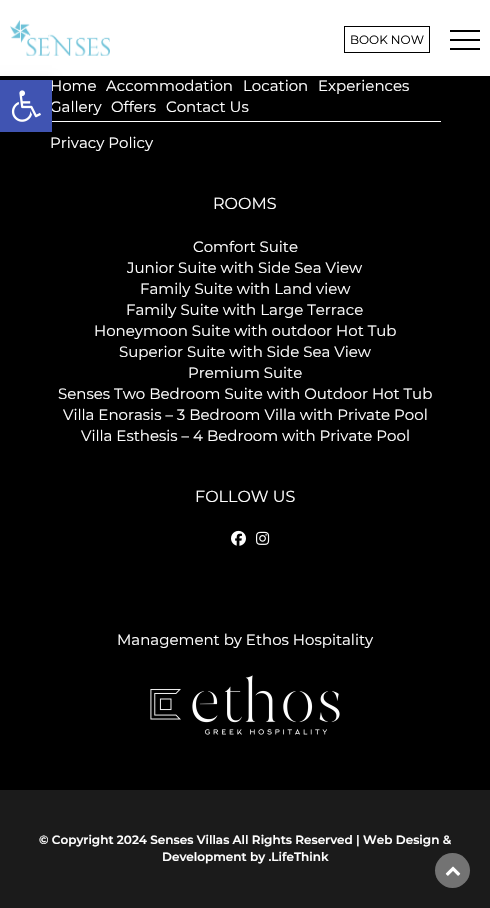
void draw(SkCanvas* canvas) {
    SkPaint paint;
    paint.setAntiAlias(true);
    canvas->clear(0xFF000000);
    paint.setColor(0xFFFFFFFF);
    canvas->drawRect(SkRect::MakeXYWH(0, 0, 490, 76), paint);
    canvas->drawRect(SkRect::MakeXYWH(50, 121, 391, 1), paint);
    paint.setColor(0x1A000000);
    paint.setMaskFilter(SkMaskFilter::MakeBlur(kNormal_SkBlurStyle, 5));
    canvas->drawRect(SkRect::MakeXYWH(0, 80, 52, 52), paint);
    paint.setMaskFilter(nullptr);
    SkFont font1(fontMgr->matchFamilyStyle("Montserrat", SkFontStyle::Normal()), 15);
    font1.setSubpixel(true);
    paint.setColor(0xFFFFFFFF);
    canvas->drawString("Home", 50, 91, font1, paint);
    canvas->drawString("Gallery", 50, 112, font1, paint);
    paint.setColor(0xFF4054B2);
    canvas->drawRect(SkRect::MakeXYWH(0, 80, 52, 52), paint);
    canvas->drawImageRect(SkImages::DeferredFromEncodedData(SkData::MakeFromFileName("img1.png")), SkRect::MakeXYWH(11, 90, 30, 32), SkSamplingOptions());
    canvas->drawImageRect(SkImages::DeferredFromEncodedData(SkData::MakeFromFileName("img2.png")), SkRect::MakeXYWH(10, 20, 100, 36), SkSamplingOptions());
    paint.setStyle(SkPaint::kStroke_Style);
    paint.setStrokeWidth(1);
    paint.setColor(0xFF000000);
    canvas->drawRect(SkRect::MakeXYWH(344.5f, 26.5f, 85, 26), paint);
    SkFont font2(fontMgr->matchFamilyStyle("Montserrat", SkFontStyle::Normal()), 12);
    font2.setSubpixel(true);
    paint.setStyle(SkPaint::kFill_Style);
    canvas->drawString("BOOK NOW", 350, 44, font2, paint);
    canvas->drawRect(SkRect::MakeXYWH(450, 30, 30, 2), paint);
    canvas->drawRect(SkRect::MakeXYWH(450, 39, 30, 2), paint);
    canvas->drawRect(SkRect::MakeXYWH(450, 48, 30, 2), paint);
    paint.setColor(0xFFFFFFFF);
    canvas->drawString("Accommodation", 106, 91, font1, paint);
    canvas->drawString("Location", 243, 91, font1, paint);
    canvas->drawString("Experiences", 318, 91, font1, paint);
    canvas->drawString("Offers", 111, 112, font1, paint);
    canvas->drawString("Contact Us", 166, 112, font1, paint);
    canvas->drawString("Privacy Policy", 50, 148, font1, paint);
    SkFont font3(fontMgr->matchFamilyStyle("Montserrat", SkFontStyle::Normal()), 16);
    font3.setSubpixel(true);
    canvas->drawString("ROOMS", 213, 209, font3, paint);
    canvas->drawString("Comfort Suite", 193, 252, font1, paint);
    canvas->drawString("Junior Suite with Side Sea View", 127, 273, font1, paint);
    canvas->drawString("Family Suite with Land view", 140, 294, font1, paint);
    canvas->drawString("Family Suite with Large Terrace", 126, 315, font1, paint);
    canvas->drawString("Honeymoon Suite with outdoor Hot Tub", 94, 336, font1, paint);
    canvas->drawString("Superior Suite with Side Sea View", 119, 357, font1, paint);
    canvas->drawString("Premium Suite", 188, 378, font1, paint);
    canvas->drawString("Senses Two Bedroom Suite with Outdoor Hot Tub", 58, 399, font1, paint);
    canvas->drawString("Villa Enorasis – 3 Bedroom Villa with Private Pool", 63, 420, font1, paint);
    canvas->drawString("Villa Esthesis – 4 Bedroom with Private Pool", 81, 441, font1, paint);
    canvas->drawString("FOLLOW US", 195, 502, font3, paint);
    canvas->drawImageRect(SkImages::DeferredFromEncodedData(SkData::MakeFromFileName("img3.png")), SkRect::MakeXYWH(231, 530, 15, 16), SkSamplingOptions());
    canvas->drawImageRect(SkImages::DeferredFromEncodedData(SkData::MakeFromFileName("img4.png")), SkRect::MakeXYWH(256, 531, 14, 14), SkSamplingOptions());
    canvas->drawString("Management by Ethos Hospitality", 117, 645, font1, paint);
    canvas->drawImageRect(SkImages::DeferredFromEncodedData(SkData::MakeFromFileName("img5.png")), SkRect::MakeXYWH(150, 675, 190, 60), SkSamplingOptions());
    paint.setColor(0xFF1B1B1B);
    canvas->drawRect(SkRect::MakeXYWH(0, 790, 490, 118), paint);
    SkFont font4(fontMgr->matchFamilyStyle("Montserrat", SkFontStyle(600, SkFontStyle::kNormal_Width, SkFontStyle::kUpright_Slant)), 12);
    font4.setSubpixel(true);
    paint.setColor(0xFFFFFFFF);
    canvas->drawString("© Copyright 2024 Senses Villas All Rights Reserved | Web Design &", 39, 844, font4, paint);
    canvas->drawString("Development by .LifeThink", 162, 861, font4, paint);
    paint.setColor(0xFF737373);
    canvas->drawCircle(452.5f, 870.5f, 17.5f, paint);
    canvas->drawImageRect(SkImages::DeferredFromEncodedData(SkData::MakeFromFileName("img6.png")), SkRect::MakeXYWH(445, 866, 16, 10), SkSamplingOptions());
}
